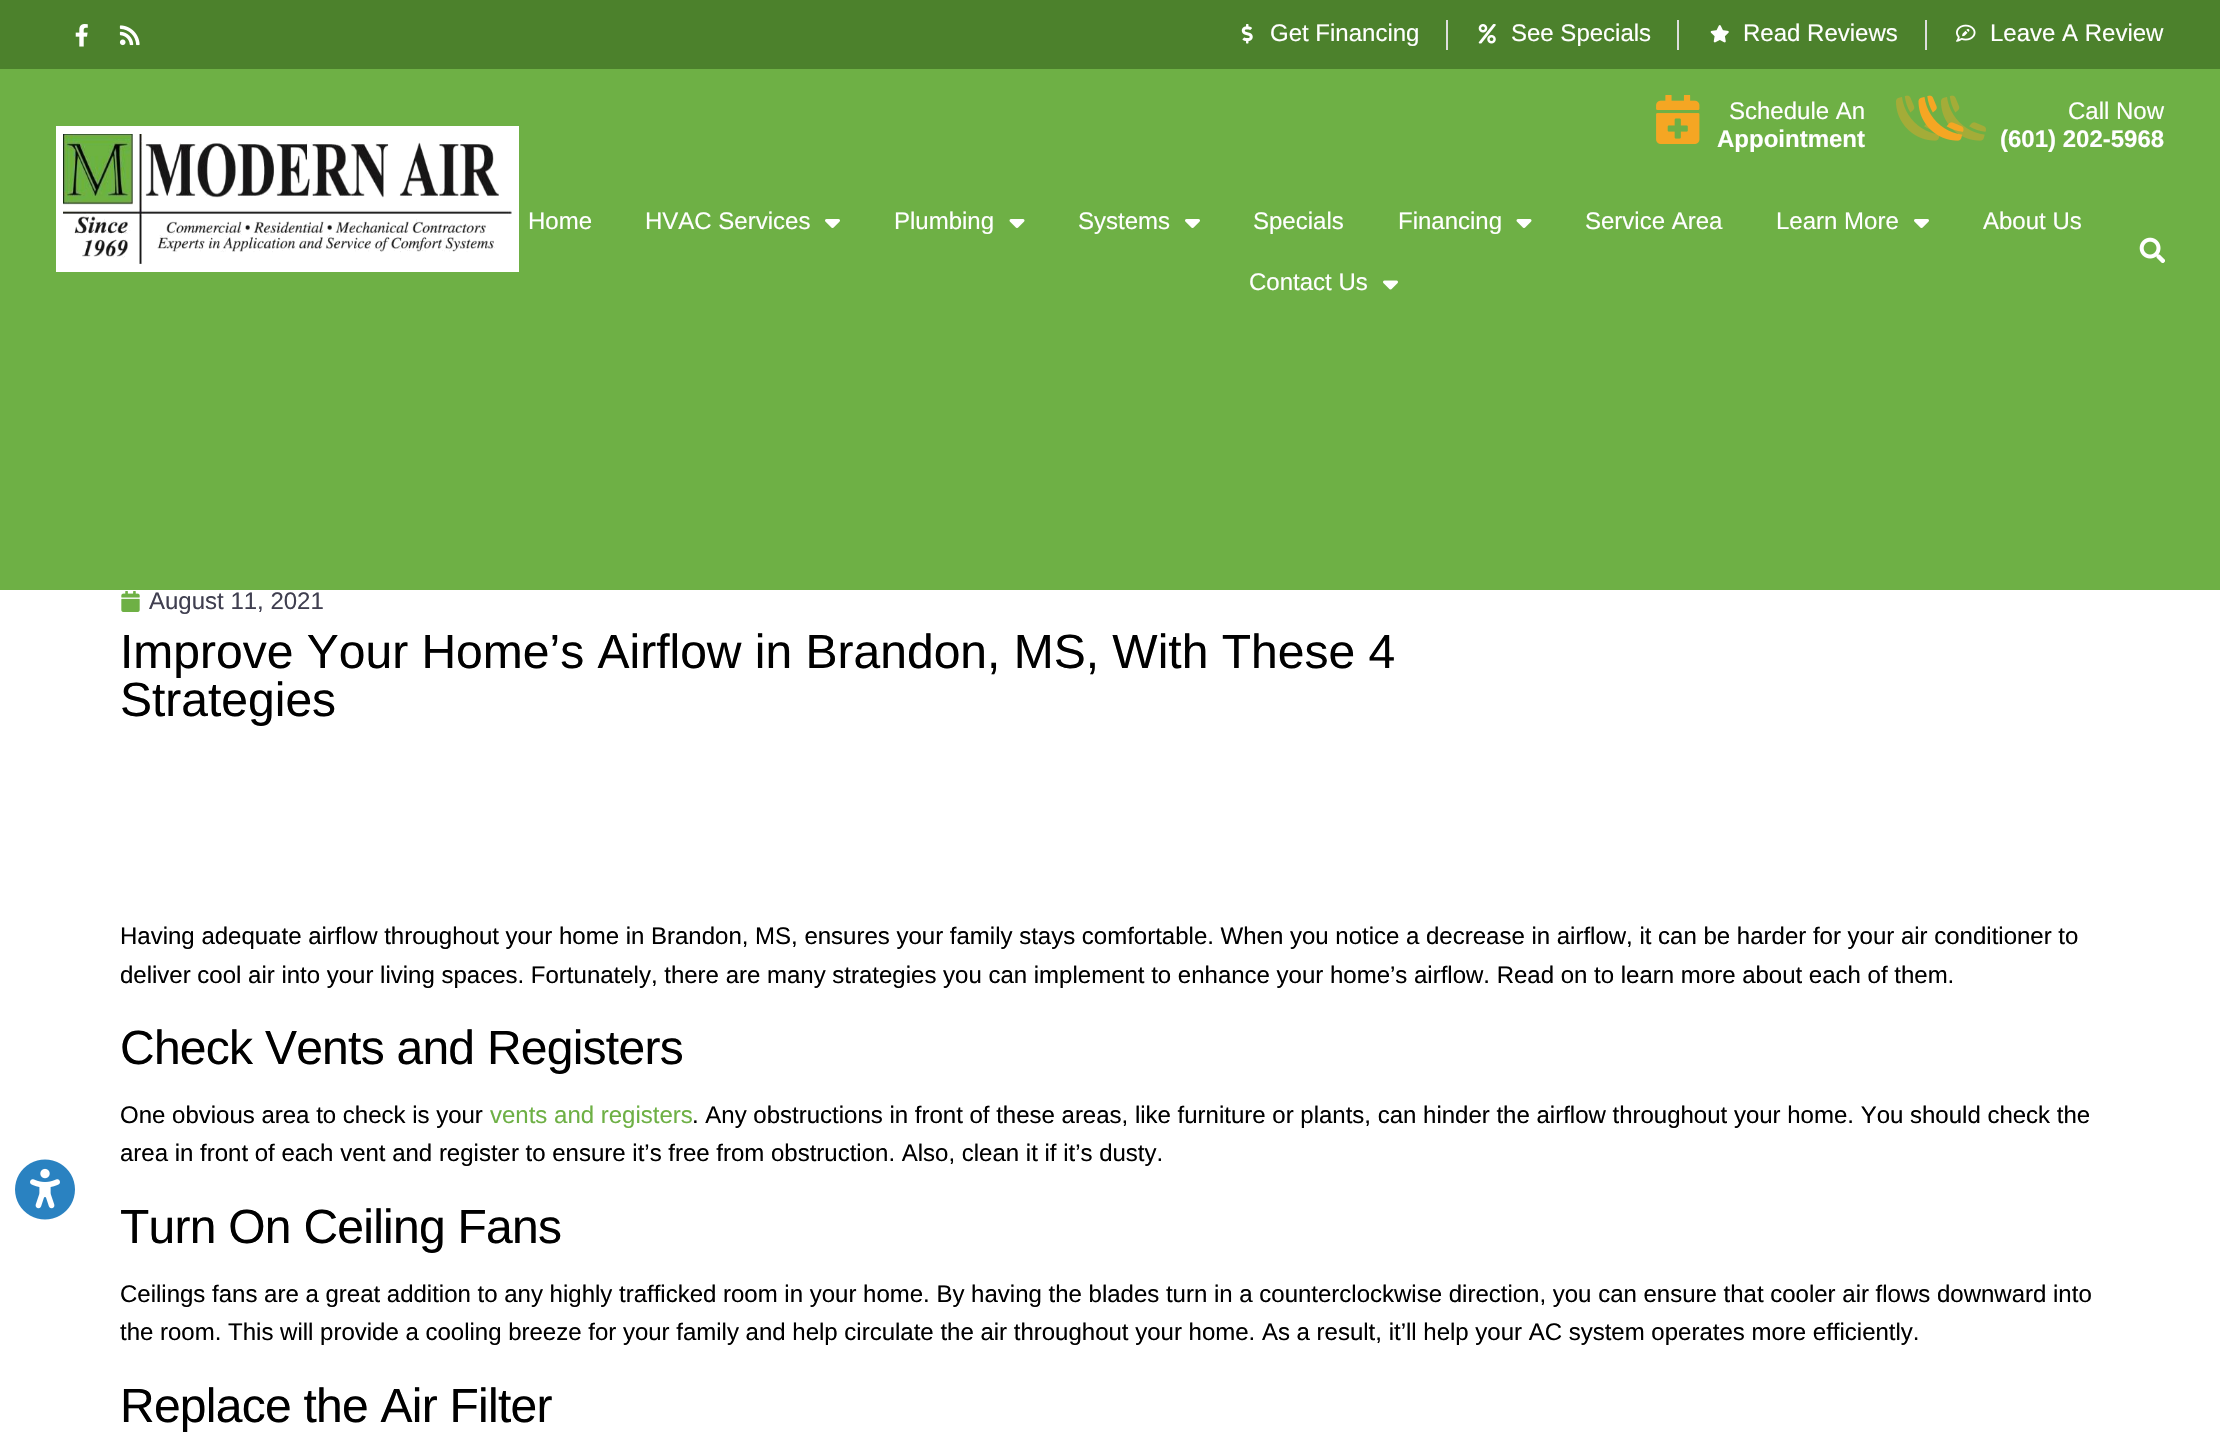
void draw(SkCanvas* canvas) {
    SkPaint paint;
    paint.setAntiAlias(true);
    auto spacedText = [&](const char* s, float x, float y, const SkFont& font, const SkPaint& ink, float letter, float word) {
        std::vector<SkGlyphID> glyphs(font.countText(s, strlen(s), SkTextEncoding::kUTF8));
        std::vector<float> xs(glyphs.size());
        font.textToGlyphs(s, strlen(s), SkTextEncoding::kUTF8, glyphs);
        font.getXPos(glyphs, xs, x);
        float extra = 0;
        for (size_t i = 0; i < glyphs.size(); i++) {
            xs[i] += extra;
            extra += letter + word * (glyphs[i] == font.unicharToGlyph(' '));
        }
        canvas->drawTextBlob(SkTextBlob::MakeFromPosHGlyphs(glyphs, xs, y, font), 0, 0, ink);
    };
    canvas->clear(0xFFFFFFFF);
    paint.setColor(0xFF6EB045);
    canvas->drawRect(SkRect::MakeXYWH(0, 69, 2220, 521), paint);
    paint.setColor(0xFF4C812C);
    canvas->drawRect(SkRect::MakeXYWH(0, 0, 2220, 69), paint);
    canvas->drawImageRect(SkImages::DeferredFromEncodedData(SkData::MakeFromFileName("img1.png")), SkRect::MakeXYWH(75, 24, 13, 23), SkSamplingOptions());
    canvas->drawImageRect(SkImages::DeferredFromEncodedData(SkData::MakeFromFileName("img2.png")), SkRect::MakeXYWH(119, 25, 21, 21), SkSamplingOptions());
    canvas->drawImageRect(SkImages::DeferredFromEncodedData(SkData::MakeFromFileName("img3.png")), SkRect::MakeXYWH(1241, 24, 12, 20), SkSamplingOptions());
    SkFont font1(fontMgr->matchFamilyStyle("Liberation Sans", SkFontStyle::Normal()), 24);
    font1.setSubpixel(true);
    paint.setColor(0xFFFFFFFF);
    canvas->drawString("Get Financing", 1270, 41, font1, paint);
    paint.setColor(0xFFDDDDDD);
    canvas->drawRect(SkRect::MakeXYWH(1446, 20, 2, 30), paint);
    canvas->drawImageRect(SkImages::DeferredFromEncodedData(SkData::MakeFromFileName("img4.png")), SkRect::MakeXYWH(1478, 24, 18, 20), SkSamplingOptions());
    paint.setColor(0xFFFFFFFF);
    canvas->drawString("See Specials", 1511, 41, font1, paint);
    paint.setColor(0xFFDDDDDD);
    canvas->drawRect(SkRect::MakeXYWH(1677, 20, 2, 30), paint);
    canvas->drawImageRect(SkImages::DeferredFromEncodedData(SkData::MakeFromFileName("img5.png")), SkRect::MakeXYWH(1710, 25, 19, 18), SkSamplingOptions());
    paint.setColor(0xFFFFFFFF);
    canvas->drawString("Read Reviews", 1743, 41, font1, paint);
    paint.setColor(0xFFDDDDDD);
    canvas->drawRect(SkRect::MakeXYWH(1925, 20, 2, 30), paint);
    canvas->drawImageRect(SkImages::DeferredFromEncodedData(SkData::MakeFromFileName("img6.png")), SkRect::MakeXYWH(1956, 24, 20, 18), SkSamplingOptions());
    paint.setColor(0xFFFFFFFF);
    canvas->drawString("Leave A Review", 1990, 41, font1, paint);
    canvas->drawRect(SkRect::MakeXYWH(56, 126, 463, 146), paint);
    canvas->drawImageRect(SkImages::DeferredFromEncodedData(SkData::MakeFromFileName("img7.png")), SkRect::MakeXYWH(63, 134, 449, 130), SkSamplingOptions());
    canvas->drawImageRect(SkImages::DeferredFromEncodedData(SkData::MakeFromFileName("img8.png")), SkRect::MakeXYWH(1656, 95, 44, 49), SkSamplingOptions());
    canvas->drawString("Schedule An", 1729, 119, font1, paint);
    SkFont font2(fontMgr->matchFamilyStyle("Liberation Sans", SkFontStyle::Bold()), 24);
    font2.setSubpixel(true);
    canvas->drawString("Appointment", 1717, 147, font2, paint);
    canvas->drawImageRect(SkImages::DeferredFromEncodedData(SkData::MakeFromFileName("img10.png")), SkRect::MakeXYWH(1918, 95, 46, 46), SkSamplingOptions());
    canvas->drawImageRect(SkImages::DeferredFromEncodedData(SkData::MakeFromFileName("img9.png")), SkRect::MakeXYWH(1896, 95, 90, 46), SkSamplingOptions());
    canvas->drawString("Call Now", 2068, 119, font1, paint);
    canvas->drawString("(601) 202-5968", 2000, 147, font2, paint);
    canvas->drawString("Home", 528, 229, font1, paint);
    canvas->drawString("HVAC Services", 645, 229, font1, paint);
    canvas->drawImageRect(SkImages::DeferredFromEncodedData(SkData::MakeFromFileName("img11.png")), SkRect::MakeXYWH(825, 219, 15, 9), SkSamplingOptions());
    canvas->drawString("Plumbing", 894, 229, font1, paint);
    canvas->drawImageRect(SkImages::DeferredFromEncodedData(SkData::MakeFromFileName("img12.png")), SkRect::MakeXYWH(1009, 219, 16, 9), SkSamplingOptions());
    canvas->drawString("Systems", 1078, 229, font1, paint);
    canvas->drawImageRect(SkImages::DeferredFromEncodedData(SkData::MakeFromFileName("img11.png")), SkRect::MakeXYWH(1185, 219, 15, 9), SkSamplingOptions());
    canvas->drawString("Specials", 1253, 229, font1, paint);
    canvas->drawString("Financing", 1398, 229, font1, paint);
    canvas->drawImageRect(SkImages::DeferredFromEncodedData(SkData::MakeFromFileName("img12.png")), SkRect::MakeXYWH(1516, 219, 16, 9), SkSamplingOptions());
    canvas->drawString("Service Area", 1585, 229, font1, paint);
    canvas->drawString("Learn More", 1776, 229, font1, paint);
    canvas->drawImageRect(SkImages::DeferredFromEncodedData(SkData::MakeFromFileName("img11.png")), SkRect::MakeXYWH(1914, 219, 15, 9), SkSamplingOptions());
    canvas->drawString("About Us", 1983, 229, font1, paint);
    canvas->drawString("Contact Us", 1249, 290, font1, paint);
    canvas->drawImageRect(SkImages::DeferredFromEncodedData(SkData::MakeFromFileName("img13.png")), SkRect::MakeXYWH(1383, 280, 15, 10), SkSamplingOptions());
    canvas->drawImageRect(SkImages::DeferredFromEncodedData(SkData::MakeFromFileName("img14.png")), SkRect::MakeXYWH(2139, 237, 26, 26), SkSamplingOptions());
    canvas->drawImageRect(SkImages::DeferredFromEncodedData(SkData::MakeFromFileName("img15.png")), SkRect::MakeXYWH(15, 1159, 60, 61), SkSamplingOptions());
    canvas->drawImageRect(SkImages::DeferredFromEncodedData(SkData::MakeFromFileName("img16.png")), SkRect::MakeXYWH(121, 591, 19, 21), SkSamplingOptions());
    paint.setColor(0xFF403F50);
    canvas->drawString("August 11, 2021", 149, 609, font1, paint);
    SkFont font3(fontMgr->matchFamilyStyle("Liberation Sans", SkFontStyle::Normal()), 48);
    font3.setSubpixel(true);
    paint.setColor(0xFF000000);
    canvas->drawString("Improve Your Home’s Airflow in Brandon, MS, With These 4", 120, 668, font3, paint);
    canvas->drawString("Strategies", 120, 716, font3, paint);
    canvas->drawString("Having adequate airflow throughout your home in Brandon, MS, ensures your family stays comfortable. When you notice a decrease in airflow, it can be harder for your air conditioner to", 120, 944, font1, paint);
    canvas->drawString("deliver cool air into your living spaces. Fortunately, there are many strategies you can implement to enhance your home’s airflow. Read on to learn more about each of them.", 120, 983, font1, paint);
    spacedText("Check Vents and Registers", 120, 1064, font3, paint, -0.75f, 0);
    canvas->drawString("One obvious area to check is your", 120, 1123, font1, paint);
    paint.setColor(0xFF6EB045);
    canvas->drawString("vents and registers", 490, 1123, font1, paint);
    paint.setColor(0xFF000000);
    canvas->drawString(". Any obstructions in front of these areas, like furniture or plants, can hinder the airflow throughout your home. You should check the", 692, 1123, font1, paint);
    canvas->drawString("area in front of each vent and register to ensure it’s free from obstruction. Also, clean it if it’s dusty.", 120, 1161, font1, paint);
    spacedText("Turn On Ceiling Fans", 120, 1243, font3, paint, -0.75f, 0);
    canvas->drawString("Ceilings fans are a great addition to any highly trafficked room in your home. By having the blades turn in a counterclockwise direction, you can ensure that cooler air flows downward into", 120, 1302, font1, paint);
    canvas->drawString("the room. This will provide a cooling breeze for your family and help circulate the air throughout your home. As a result, it’ll help your AC system operates more efficiently.", 120, 1340, font1, paint);
    spacedText("Replace the Air Filter", 120, 1422, font3, paint, -0.75f, 0);
}
